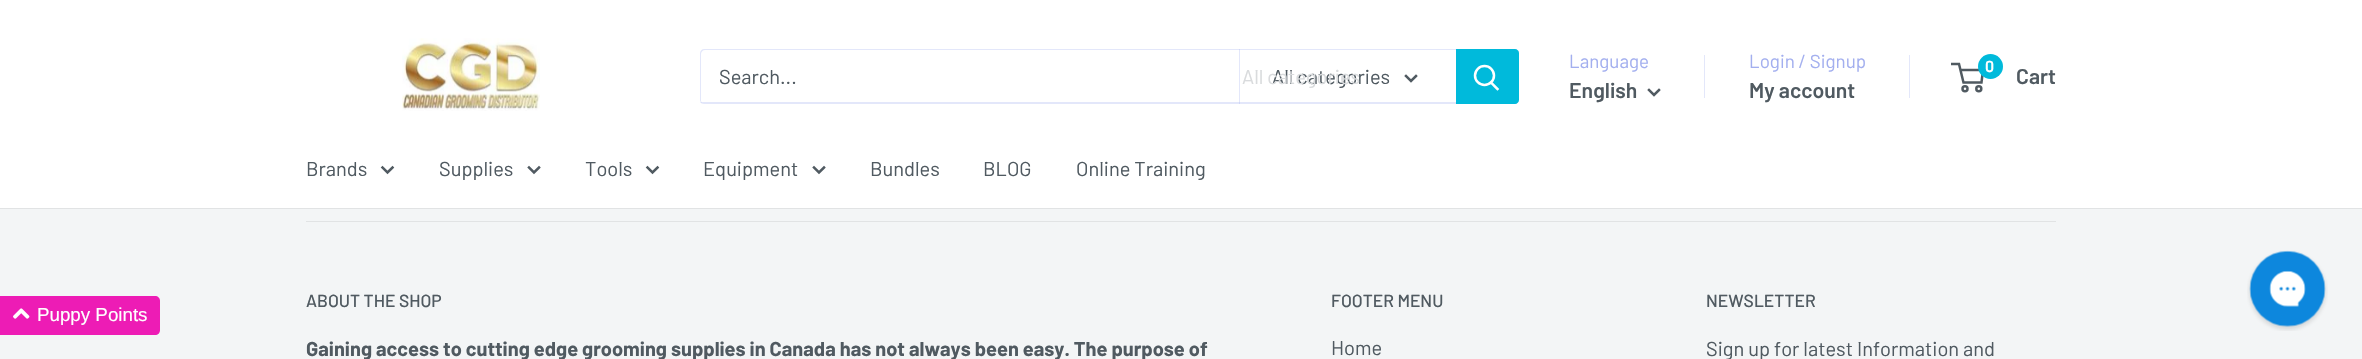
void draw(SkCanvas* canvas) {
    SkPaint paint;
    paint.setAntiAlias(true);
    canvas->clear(0xFFF3F5F6);
    paint.setColor(0xFFFFFFFF);
    canvas->drawRect(SkRect::MakeXYWH(0, 0, 2362, 208), paint);
    canvas->drawImageRect(SkImages::DeferredFromEncodedData(SkData::MakeFromFileName("img1.png")), SkRect::MakeXYWH(402, 38, 138, 73), SkSamplingOptions());
    paint.setColor(0xFFE3E7FA);
    canvas->drawPath(SkPathBuilder().moveTo(700, 102).cubicTo(701, 103, 702, 104, 704, 104).lineTo(1515, 104).cubicTo(1517, 104, 1519, 102, 1519, 100).lineTo(1519, 53).cubicTo(1519, 52, 1519, 51, 1518, 50).lineTo(1518, 91).cubicTo(1518, 95, 1520, 102, 1514, 102).close().detach(), paint);
    paint.setColor(0x4DA3AFEF);
    canvas->drawPath(SkPathBuilder().moveTo(705, 50).lineTo(1516, 50).lineTo(1518, 51).cubicTo(1518, 50, 1516, 49, 1515, 49).lineTo(704, 49).cubicTo(702, 49, 700, 51, 700, 53).lineTo(700, 100).cubicTo(700, 101, 701, 103, 702, 103).lineTo(701, 101).lineTo(701, 54).cubicTo(701, 52, 703, 50, 705, 50).close().detach(), paint);
    SkFont font1(fontMgr->matchFamilyStyle("Barlow", SkFontStyle::Normal()), 20);
    font1.setSubpixel(true);
    paint.setColor(0xFF505A61);
    canvas->drawString("Search...", 719, 84, font1, paint);
    paint.setColor(0x4DA3AFEF);
    canvas->drawRect(SkRect::MakeXYWH(1239, 49, 1, 55), paint);
    paint.setColor(0xFF505A61);
    canvas->drawString("All categories", 1272, 84, font1, paint);
    paint.setColor(0xFFD9DBDD);
    canvas->drawString("All categories", 1242, 84, font1, paint);
    paint.setStyle(SkPaint::kStroke_Style);
    paint.setStrokeWidth(2.5f);
    paint.setStrokeCap(SkPaint::kSquare_Cap);
    paint.setColor(0xFF505A61);
    canvas->drawPath(SkPathBuilder().moveTo(1416, 76).lineTo(1411, 81).lineTo(1406, 76).detach(), paint);
    paint.setStyle(SkPaint::kFill_Style);
    paint.setColor(0xFF00BADB);
    canvas->drawPath(SkPathBuilder().moveTo(1456, 49).lineTo(1515, 49).cubicTo(1517, 49, 1519, 51, 1519, 53).lineTo(1519, 100).cubicTo(1519, 102, 1517, 104, 1515, 104).lineTo(1456, 104).close().detach(), paint);
    paint.setStyle(SkPaint::kStroke_Style);
    paint.setColor(0xFFFFFFFF);
    canvas->drawPath(SkPathBuilder().moveTo(1497.5f, 89).lineTo(1491, 82.5f).detach(), paint);
    paint.setStrokeCap(SkPaint::kButt_Cap);
    canvas->drawCircle(1484.5f, 75.5f, 9.5f, paint);
    SkFont font2(fontMgr->matchFamilyStyle("Barlow", SkFontStyle::Normal()), 18.75f);
    font2.setSubpixel(true);
    paint.setStyle(SkPaint::kFill_Style);
    paint.setColor(0xFFA3AFEF);
    canvas->drawString("Language", 1569, 68, font2, paint);
    SkFont font3(fontMgr->matchFamilyStyle("Barlow", SkFontStyle(600, SkFontStyle::kNormal_Width, SkFontStyle::kUpright_Slant)), 21.25f);
    font3.setSubpixel(true);
    paint.setColor(0xFF505A61);
    canvas->drawString("English", 1569, 98, font3, paint);
    paint.setStyle(SkPaint::kStroke_Style);
    paint.setStrokeCap(SkPaint::kSquare_Cap);
    canvas->drawPath(SkPathBuilder().moveTo(1659, 90).lineTo(1654, 95).lineTo(1649, 90).detach(), paint);
    paint.setStyle(SkPaint::kFill_Style);
    paint.setColor(0xFFE3E7FA);
    canvas->drawRect(SkRect::MakeXYWH(1704, 55, 1, 43), paint);
    paint.setColor(0xFFA3AFEF);
    canvas->drawString("Login / Signup", 1749, 68, font2, paint);
    paint.setColor(0xFFE3E7FA);
    canvas->drawRect(SkRect::MakeXYWH(1909, 55, 1, 43), paint);
    paint.setColor(0xFF505A61);
    canvas->drawString("My account", 1749, 98, font3, paint);
    paint.setStyle(SkPaint::kStroke_Style);
    paint.setStrokeCap(SkPaint::kButt_Cap);
    canvas->drawCircle(1965, 88.8f, 2.5f, paint);
    canvas->drawCircle(1978.8f, 88.8f, 2.5f, paint);
    canvas->drawPath(SkPathBuilder().moveTo(1960.5f, 70).lineTo(1983, 70).lineTo(1981.5f, 82.5f).lineTo(1963.5f, 82.5f).lineTo(1959, 64).lineTo(1951, 64).detach(), paint);
    paint.setStyle(SkPaint::kFill_Style);
    paint.setColor(0xFF00BADB);
    canvas->drawCircle(1990.5f, 66.5f, 12.5f, paint);
    SkFont font4(fontMgr->matchFamilyStyle("Barlow", SkFontStyle(600, SkFontStyle::kNormal_Width, SkFontStyle::kUpright_Slant)), 16);
    font4.setSubpixel(true);
    paint.setColor(0xFFFFFFFF);
    canvas->drawString("0", 1985, 72, font4, paint);
    paint.setColor(0xFF505A61);
    canvas->drawString("Cart", 2016, 84, font3, paint);
    paint.setColor(0xFFE1E3E4);
    canvas->drawRect(SkRect::MakeXYWH(0, 208, 2362, 1), paint);
    paint.setColor(0xFF505A61);
    canvas->drawString("Brands", 306, 176, font1, paint);
    paint.setStyle(SkPaint::kStroke_Style);
    paint.setStrokeCap(SkPaint::kSquare_Cap);
    canvas->drawPath(SkPathBuilder().moveTo(392.5f, 167.5f).lineTo(387.5f, 172.5f).lineTo(382.5f, 167.5f).detach(), paint);
    paint.setStyle(SkPaint::kFill_Style);
    canvas->drawString("Supplies", 439, 176, font1, paint);
    paint.setStyle(SkPaint::kStroke_Style);
    canvas->drawPath(SkPathBuilder().moveTo(539, 167.5f).lineTo(534, 172.5f).lineTo(529, 167.5f).detach(), paint);
    paint.setStyle(SkPaint::kFill_Style);
    canvas->drawString("Tools", 585, 176, font1, paint);
    paint.setStyle(SkPaint::kStroke_Style);
    canvas->drawPath(SkPathBuilder().moveTo(657.5f, 167.5f).lineTo(652.5f, 172.5f).lineTo(647.5f, 167.5f).detach(), paint);
    paint.setStyle(SkPaint::kFill_Style);
    canvas->drawString("Equipment", 703, 176, font1, paint);
    paint.setStyle(SkPaint::kStroke_Style);
    canvas->drawPath(SkPathBuilder().moveTo(824, 167.5f).lineTo(819, 172.5f).lineTo(814, 167.5f).detach(), paint);
    paint.setStyle(SkPaint::kFill_Style);
    canvas->drawString("Bundles", 870, 176, font1, paint);
    canvas->drawString("BLOG", 983, 176, font1, paint);
    canvas->drawString("Online Training", 1076, 176, font1, paint);
    paint.setColor(0xFFED1CB5);
    canvas->drawPath(SkPathBuilder().moveTo(0, 296).lineTo(155, 296).cubicTo(158, 296, 160, 298, 160, 301).lineTo(160, 330).cubicTo(160, 333, 158, 335, 155, 335).lineTo(0, 335).close().detach(), paint);
    canvas->drawImageRect(SkImages::DeferredFromEncodedData(SkData::MakeFromFileName("img2.png")), SkRect::MakeXYWH(13, 308, 17, 11), SkSamplingOptions());
    SkFont font5(fontMgr->matchFamilyStyle("Liberation Sans", SkFontStyle::Normal()), 18.75f);
    font5.setSubpixel(true);
    paint.setColor(0xFFFFFFFF);
    canvas->drawString("Puppy Points", 37, 321, font5, paint);
    paint.setColor(0xFFE1E3E4);
    canvas->drawRect(SkRect::MakeXYWH(306, 221, 1750, 1), paint);
    SkFont font6(fontMgr->matchFamilyStyle("Barlow", SkFontStyle(500, SkFontStyle::kNormal_Width, SkFontStyle::kUpright_Slant)), 17.5f);
    font6.setSubpixel(true);
    paint.setColor(0xFF505A61);
    canvas->drawString("ABOUT THE SHOP", 306, 307, font6, paint);
    SkFont font7(fontMgr->matchFamilyStyle("Barlow", SkFontStyle::Bold()), 20);
    font7.setSubpixel(true);
    canvas->drawString("Gaining access to cutting edge grooming supplies in Canada has not always been easy. The purpose of", 306, 356, font7, paint);
    canvas->drawString("FOOTER MENU", 1331, 307, font6, paint);
    canvas->drawString("Home", 1331, 355, font1, paint);
    canvas->drawString("NEWSLETTER", 1706, 307, font6, paint);
    canvas->drawString("Sign up for latest Information and", 1706, 356, font1, paint);
    canvas->drawImageRect(SkImages::DeferredFromEncodedData(SkData::MakeFromFileName("img3.png")), SkRect::MakeXYWH(2247, 250, 81, 81), SkSamplingOptions());
}
